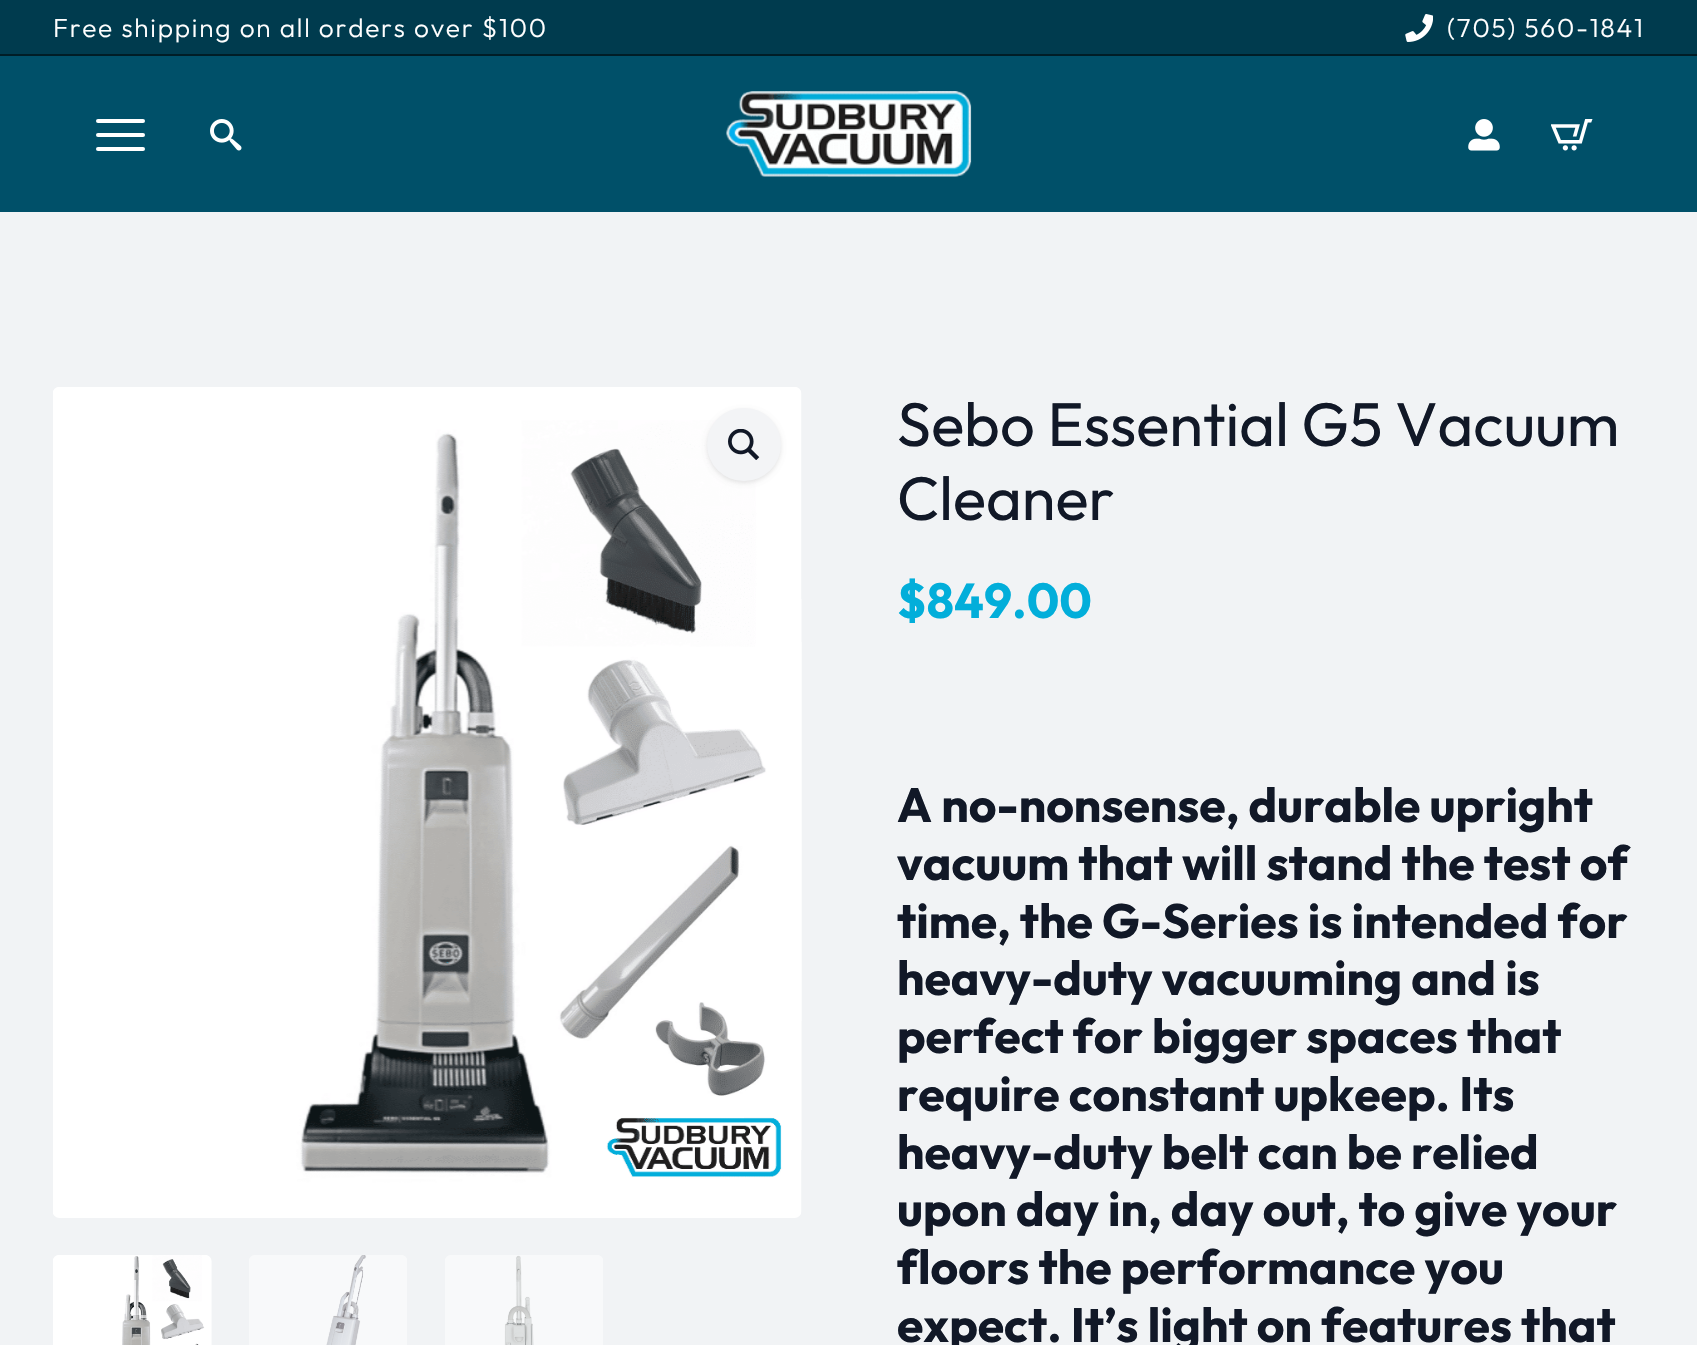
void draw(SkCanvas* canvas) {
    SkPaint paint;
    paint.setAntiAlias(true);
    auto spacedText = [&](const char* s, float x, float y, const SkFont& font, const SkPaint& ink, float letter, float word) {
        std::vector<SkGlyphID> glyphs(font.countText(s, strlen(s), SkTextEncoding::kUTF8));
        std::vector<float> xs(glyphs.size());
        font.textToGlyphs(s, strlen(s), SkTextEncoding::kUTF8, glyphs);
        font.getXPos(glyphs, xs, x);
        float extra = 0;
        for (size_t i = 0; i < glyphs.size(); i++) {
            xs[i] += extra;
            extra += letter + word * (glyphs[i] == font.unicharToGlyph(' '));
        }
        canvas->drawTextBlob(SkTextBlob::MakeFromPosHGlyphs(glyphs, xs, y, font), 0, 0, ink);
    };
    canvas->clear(0xFFF1F3F5);
    paint.setColor(0xFF005069);
    canvas->drawRect(SkRect::MakeXYWH(0, 56, 1697, 156), paint);
    paint.setColor(0xFF003B4E);
    canvas->drawRect(SkRect::MakeXYWH(0, 0, 1697, 54), paint);
    paint.setColor(0xFF001D26);
    canvas->drawRect(SkRect::MakeXYWH(0, 54, 1697, 2), paint);
    SkFont font1(fontMgr->matchFamilyStyle("Outfit", SkFontStyle(300, SkFontStyle::kNormal_Width, SkFontStyle::kUpright_Slant)), 26.25f);
    font1.setSubpixel(true);
    paint.setColor(0xFFFFFFFF);
    spacedText("Free shipping on all orders over $100", 53, 37, font1, paint, 1.75f, 0);
    canvas->drawImageRect(SkImages::DeferredFromEncodedData(SkData::MakeFromFileName("img1.png")), SkRect::MakeXYWH(1405, 14, 28, 28), SkSamplingOptions());
    spacedText("(705) 560-1841", 1447, 37, font1, paint, 1.75f, 0);
    canvas->drawRoundRect(SkRect::MakeXYWH(96, 133, 49, 4), 2, 2, paint);
    canvas->drawRoundRect(SkRect::MakeXYWH(96, 119, 49, 4), 2, 2, paint);
    canvas->drawRoundRect(SkRect::MakeXYWH(96, 147, 49, 4), 2, 2, paint);
    canvas->drawImageRect(SkImages::DeferredFromEncodedData(SkData::MakeFromFileName("img2.png")), SkRect::MakeXYWH(210, 119, 32, 32), SkSamplingOptions());
    canvas->drawImageRect(SkImages::DeferredFromEncodedData(SkData::MakeFromFileName("img3.png")), SkRect::MakeXYWH(726, 91, 246, 86), SkSamplingOptions());
    canvas->drawImageRect(SkImages::DeferredFromEncodedData(SkData::MakeFromFileName("img4.png")), SkRect::MakeXYWH(1468, 119, 32, 32), SkSamplingOptions());
    canvas->drawImageRect(SkImages::DeferredFromEncodedData(SkData::MakeFromFileName("img5.png")), SkRect::MakeXYWH(1551, 119, 42, 32), SkSamplingOptions());
    paint.setColor(0xFFF7F8F9);
    canvas->drawRect(SkRect::MakeXYWH(801, 642, 1, 508), paint);
    canvas->drawImageRect(SkImages::DeferredFromEncodedData(SkData::MakeFromFileName("img6.png")), SkRect::MakeXYWH(53, 387, 749, 831), SkSamplingOptions());
    paint.setColor(0x0D000000);
    paint.setMaskFilter(SkMaskFilter::MakeBlur(kNormal_SkBlurStyle, 2));
    canvas->drawRoundRect(SkRect::MakeXYWH(707, 410, 74, 73), 36.5f, 36.5f, paint);
    paint.setMaskFilter(nullptr);
    paint.setMaskFilter(SkMaskFilter::MakeBlur(kNormal_SkBlurStyle, 2.5f));
    canvas->drawRoundRect(SkRect::MakeXYWH(707, 410, 74, 73), 36.5f, 36.5f, paint);
    paint.setMaskFilter(nullptr);
    paint.setColor(0xFFF3F4F6);
    canvas->drawRoundRect(SkRect::MakeXYWH(707, 408, 74, 73), 36.5f, 36.5f, paint);
    canvas->drawImageRect(SkImages::DeferredFromEncodedData(SkData::MakeFromFileName("img7.png")), SkRect::MakeXYWH(728, 429, 32, 31), SkSamplingOptions());
    canvas->drawImageRect(SkImages::DeferredFromEncodedData(SkData::MakeFromFileName("img8.png")), SkRect::MakeXYWH(53, 1255, 159, 90), SkSamplingOptions());
    canvas->drawImageRect(SkImages::DeferredFromEncodedData(SkData::MakeFromFileName("img9.png")), SkRect::MakeXYWH(249, 1255, 158, 90), SkSamplingOptions());
    canvas->drawImageRect(SkImages::DeferredFromEncodedData(SkData::MakeFromFileName("img10.png")), SkRect::MakeXYWH(445, 1255, 158, 90), SkSamplingOptions());
    SkFont font2(fontMgr->matchFamilyStyle("Outfit", SkFontStyle::Normal()), 61.5f);
    font2.setSubpixel(true);
    paint.setColor(0xFF111827);
    canvas->drawString("Sebo Essential G5 Vacuum", 897, 446, font2, paint);
    canvas->drawString("Cleaner", 897, 520, font2, paint);
    SkFont font3(fontMgr->matchFamilyStyle("Outfit", SkFontStyle::Bold()), 49);
    font3.setSubpixel(true);
    paint.setColor(0xFF02AEDA);
    canvas->drawString("$849.00", 897, 618, font3, paint);
    SkFont font4(fontMgr->matchFamilyStyle("Outfit", SkFontStyle::Bold()), 48.1f);
    font4.setSubpixel(true);
    paint.setColor(0xFF111827);
    canvas->drawString("A no-nonsense, durable upright", 897, 822, font4, paint);
    canvas->drawString("vacuum that will stand the test of", 897, 880, font4, paint);
    canvas->drawString("time, the G-Series is intended for", 897, 938, font4, paint);
    canvas->drawString("heavy-duty vacuuming and is", 897, 995, font4, paint);
    canvas->drawString("perfect for bigger spaces that", 897, 1053, font4, paint);
    canvas->drawString("require constant upkeep. Its", 897, 1111, font4, paint);
    canvas->drawString("heavy-duty belt can be relied", 897, 1169, font4, paint);
    canvas->drawString("upon day in, day out, to give your", 897, 1226, font4, paint);
    canvas->drawString("floors the performance you", 897, 1284, font4, paint);
    canvas->drawString("expect. It’s light on features that", 897, 1342, font4, paint);
}
